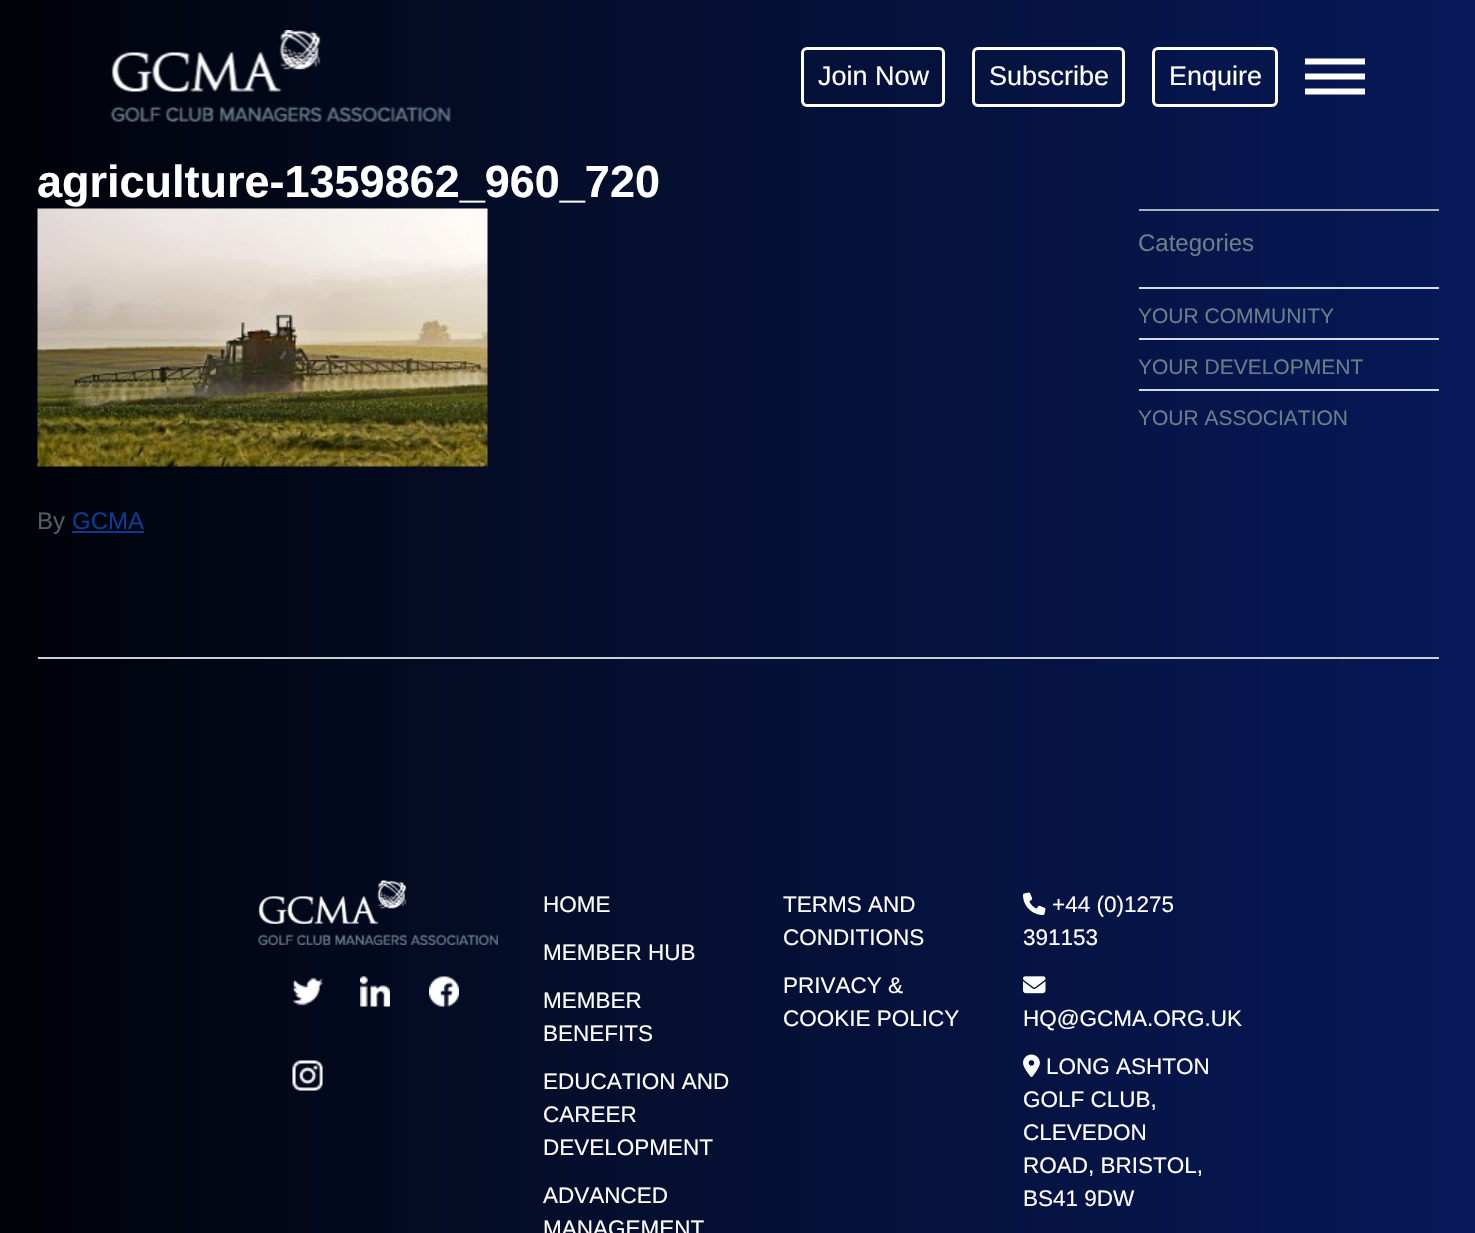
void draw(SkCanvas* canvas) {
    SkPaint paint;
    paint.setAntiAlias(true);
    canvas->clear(0xFFFFFFFF);
    {
        const SkColor colors[] = {0xFF000208, 0xFF050E2C, 0xFF061858};
        const float stops[] = {0, 0.39f, 1};
        const SkPoint ends[] = {{0, 1068}, {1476, 1068}};
        paint.setShader(SkGradientShader::MakeLinear(ends, colors, stops, 3, SkTileMode::kClamp));
        paint.setAlpha(255);
    }
    canvas->drawRect(SkRect::MakeXYWH(0, 152, 1475, 1081), paint);
    {
        const SkColor colors[] = {0xFF000208, 0xFF050E2C, 0xFF061858};
        const float stops[] = {0, 0.39f, 1};
        const SkPoint ends[] = {{0, 76}, {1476, 76}};
        paint.setShader(SkGradientShader::MakeLinear(ends, colors, stops, 3, SkTileMode::kClamp));
        paint.setAlpha(255);
    }
    canvas->drawRect(SkRect::MakeXYWH(0, 0, 1475, 152), paint);
    canvas->drawImageRect(SkImages::DeferredFromEncodedData(SkData::MakeFromFileName("img1.png")), SkRect::MakeXYWH(110, 30, 341, 92), SkSamplingOptions());
    paint.setStyle(SkPaint::kStroke_Style);
    paint.setStrokeWidth(3);
    paint.setShader(nullptr);
    paint.setColor(0xFFFFFFFF);
    canvas->drawRoundRect(SkRect::MakeXYWH(802.5f, 48.5f, 141, 57), 4.5f, 4.5f, paint);
    SkFont font1(fontMgr->matchFamilyStyle("Liberation Sans", SkFontStyle::Normal()), 27);
    font1.setSubpixel(true);
    paint.setStyle(SkPaint::kFill_Style);
    canvas->drawString("Join Now", 818, 85, font1, paint);
    paint.setStyle(SkPaint::kStroke_Style);
    canvas->drawRoundRect(SkRect::MakeXYWH(973.5f, 48.5f, 150, 57), 4.5f, 4.5f, paint);
    paint.setStyle(SkPaint::kFill_Style);
    canvas->drawString("Subscribe", 989, 85, font1, paint);
    paint.setStyle(SkPaint::kStroke_Style);
    canvas->drawRoundRect(SkRect::MakeXYWH(1153.5f, 48.5f, 123, 57), 4.5f, 4.5f, paint);
    paint.setStyle(SkPaint::kFill_Style);
    canvas->drawString("Enquire", 1169, 85, font1, paint);
    canvas->drawImageRect(SkImages::DeferredFromEncodedData(SkData::MakeFromFileName("img2.png")), SkRect::MakeXYWH(1305, 58, 60, 37), SkSamplingOptions());
    SkFont font2(fontMgr->matchFamilyStyle("Liberation Sans", SkFontStyle::Bold()), 45);
    font2.setSubpixel(true);
    canvas->drawString("agriculture-1359862_960_720", 37, 197, font2, paint);
    paint.setColor(0xFFA7B3BA);
    canvas->drawRect(SkRect::MakeXYWH(1139, 209, 300, 2), paint);
    SkFont font3(fontMgr->matchFamilyStyle("Liberation Sans", SkFontStyle::Normal()), 24);
    font3.setSubpixel(true);
    paint.setColor(0xFF6A7E8A);
    canvas->drawString("Categories", 1138, 251, font3, paint);
    paint.setColor(0xFFD6DCDF);
    canvas->drawRect(SkRect::MakeXYWH(1139, 287, 300, 2), paint);
    canvas->drawRect(SkRect::MakeXYWH(1139, 338, 300, 2), paint);
    SkFont font4(fontMgr->matchFamilyStyle("Liberation Sans", SkFontStyle::Normal()), 21);
    font4.setSubpixel(true);
    paint.setColor(0xFF6A7E8A);
    canvas->drawString("YOUR COMMUNITY", 1138, 323, font4, paint);
    paint.setColor(0xFFD6DCDF);
    canvas->drawRect(SkRect::MakeXYWH(1139, 389, 300, 2), paint);
    paint.setColor(0xFF6A7E8A);
    canvas->drawString("YOUR DEVELOPMENT", 1138, 374, font4, paint);
    canvas->drawString("YOUR ASSOCIATION", 1138, 425, font4, paint);
    canvas->drawImageRect(SkImages::DeferredFromEncodedData(SkData::MakeFromFileName("img3.png")), SkRect::MakeXYWH(37, 208, 451, 259), SkSamplingOptions());
    paint.setColor(0xFF5B5B5B);
    canvas->drawString("By", 37, 529, font3, paint);
    paint.setColor(0xFF093C95);
    canvas->drawString("GCMA", 72, 529, font3, paint);
    canvas->drawRect(SkRect::MakeXYWH(72, 531, 72, 2), paint);
    paint.setColor(0xFFC7D0D5);
    canvas->drawRect(SkRect::MakeXYWH(38, 657, 1401, 2), paint);
    canvas->drawImageRect(SkImages::DeferredFromEncodedData(SkData::MakeFromFileName("img4.png")), SkRect::MakeXYWH(258, 880, 240, 65), SkSamplingOptions());
    canvas->drawImageRect(SkImages::DeferredFromEncodedData(SkData::MakeFromFileName("img5.png")), SkRect::MakeXYWH(292, 977, 31, 29), SkSamplingOptions());
    canvas->drawImageRect(SkImages::DeferredFromEncodedData(SkData::MakeFromFileName("img6.png")), SkRect::MakeXYWH(360, 976, 30, 31), SkSamplingOptions());
    canvas->drawImageRect(SkImages::DeferredFromEncodedData(SkData::MakeFromFileName("img7.png")), SkRect::MakeXYWH(429, 976, 30, 31), SkSamplingOptions());
    canvas->drawImageRect(SkImages::DeferredFromEncodedData(SkData::MakeFromFileName("img8.png")), SkRect::MakeXYWH(292, 1060, 31, 31), SkSamplingOptions());
    SkFont font5(fontMgr->matchFamilyStyle("Liberation Sans", SkFontStyle::Normal()), 22.5f);
    font5.setSubpixel(true);
    paint.setColor(0xFFFFFFFF);
    canvas->drawString("HOME", 543, 912, font5, paint);
    canvas->drawString("MEMBER HUB", 543, 960, font5, paint);
    canvas->drawString("MEMBER", 543, 1008, font5, paint);
    canvas->drawString("BENEFITS", 543, 1041, font5, paint);
    canvas->drawString("EDUCATION AND", 543, 1089, font5, paint);
    canvas->drawString("CAREER", 543, 1122, font5, paint);
    canvas->drawString("DEVELOPMENT", 543, 1155, font5, paint);
    canvas->drawString("ADVANCED", 543, 1203, font5, paint);
    canvas->drawString("MANAGEMENT", 543, 1236, font5, paint);
    canvas->drawString("TERMS AND", 783, 912, font5, paint);
    canvas->drawString("CONDITIONS", 783, 945, font5, paint);
    canvas->drawString("PRIVACY &", 783, 993, font5, paint);
    canvas->drawString("COOKIE POLICY", 783, 1026, font5, paint);
    canvas->drawImageRect(SkImages::DeferredFromEncodedData(SkData::MakeFromFileName("img9.png")), SkRect::MakeXYWH(1023, 892, 23, 23), SkSamplingOptions());
    canvas->drawString("+44 (0)1275", 1052, 912, font5, paint);
    canvas->drawString("391153", 1023, 945, font5, paint);
    canvas->drawImageRect(SkImages::DeferredFromEncodedData(SkData::MakeFromFileName("img10.png")), SkRect::MakeXYWH(1023, 976, 23, 18), SkSamplingOptions());
    canvas->drawString("HQ@GCMA.ORG.UK", 1023, 1026, font5, paint);
    canvas->drawImageRect(SkImages::DeferredFromEncodedData(SkData::MakeFromFileName("img11.png")), SkRect::MakeXYWH(1023, 1054, 17, 23), SkSamplingOptions());
    canvas->drawString("LONG ASHTON", 1046, 1074, font5, paint);
    canvas->drawString("GOLF CLUB,", 1023, 1107, font5, paint);
    canvas->drawString("CLEVEDON", 1023, 1140, font5, paint);
    canvas->drawString("ROAD, BRISTOL,", 1023, 1173, font5, paint);
    canvas->drawString("BS41 9DW", 1023, 1206, font5, paint);
}
